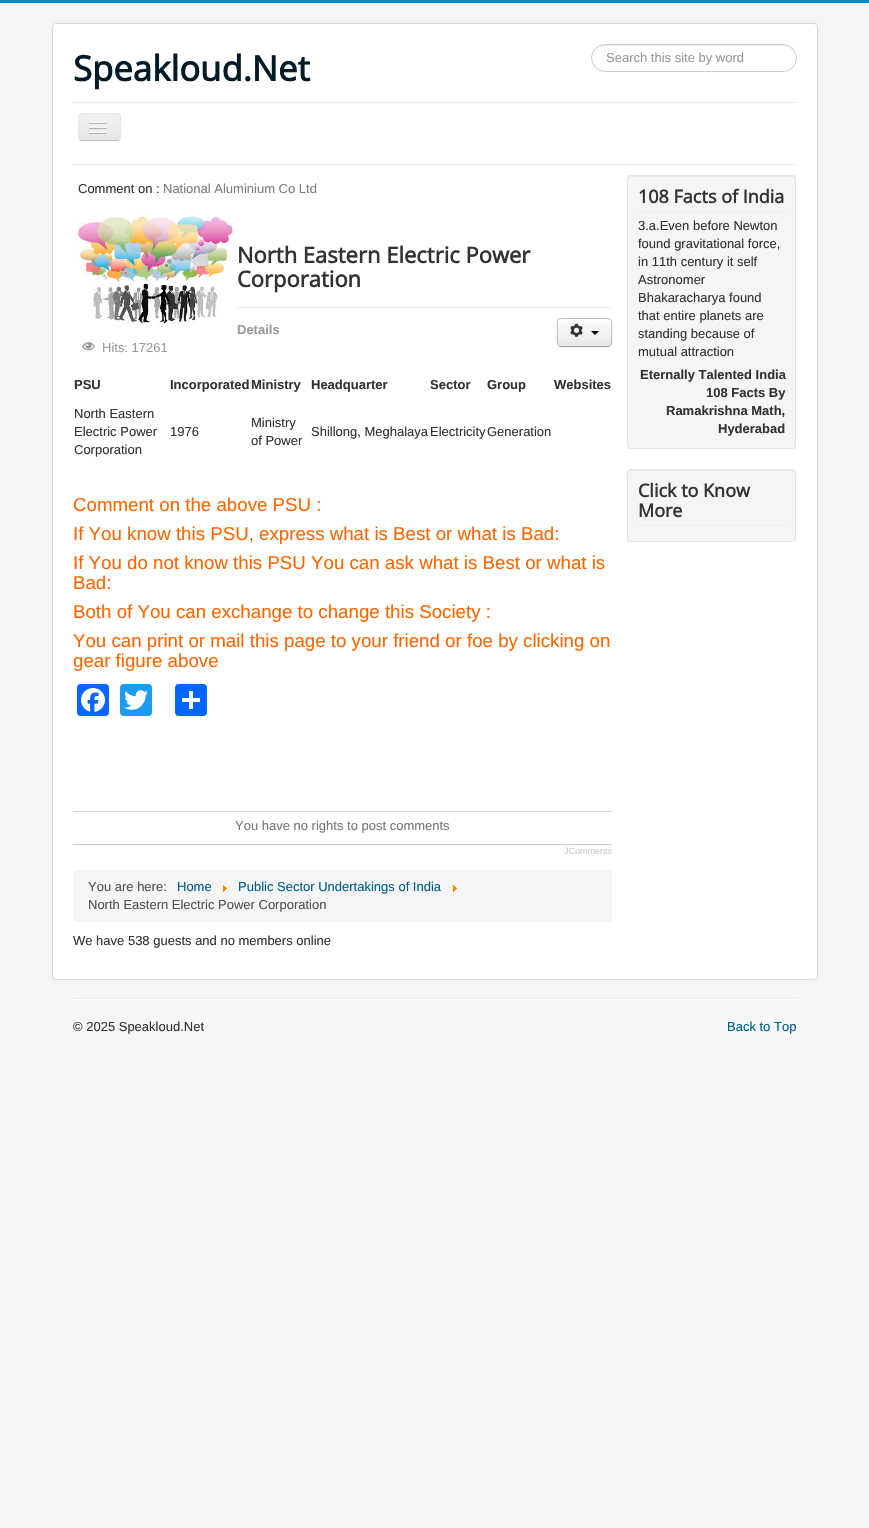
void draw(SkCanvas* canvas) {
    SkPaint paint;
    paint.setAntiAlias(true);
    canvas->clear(0xFFF4F6F7);
    paint.setColor(0xFF0088CC);
    canvas->drawRect(SkRect::MakeXYWH(0, 0, 869, 3), paint);
    paint.setColor(0x0D000000);
    paint.setMaskFilter(SkMaskFilter::MakeBlur(kNormal_SkBlurStyle, 3));
    canvas->drawRoundRect(SkRect::MakeXYWH(52, 23, 766, 957), 4, 4, paint);
    paint.setMaskFilter(nullptr);
    paint.setColor(0xFFFFFFFF);
    canvas->drawRoundRect(SkRect::MakeXYWH(52, 23, 766, 957), 4, 4, paint);
    paint.setStyle(SkPaint::kStroke_Style);
    paint.setStrokeWidth(1);
    paint.setColor(0x26000000);
    canvas->drawRoundRect(SkRect::MakeXYWH(52.5f, 23.5f, 765, 956), 3.5f, 3.5f, paint);
    SkFont font1(fontMgr->matchFamilyStyle("Open Sans", SkFontStyle::Bold()), 34.75f);
    font1.setSubpixel(true);
    paint.setStyle(SkPaint::kFill_Style);
    paint.setColor(0xFF001A27);
    canvas->drawString("Speakloud.Net", 73, 81, font1, paint);
    paint.setColor(0xFFECECEC);
    canvas->drawPath(SkPathBuilder().moveTo(605, 46).lineTo(783, 46).cubicTo(790, 46, 796, 52, 796, 59).cubicTo(797, 38, 761, 45, 753, 45).lineTo(635, 45).cubicTo(627, 45, 591, 38, 592, 59).cubicTo(592, 52, 598, 46, 605, 46).close().detach(), paint);
    paint.setStyle(SkPaint::kStroke_Style);
    paint.setColor(0xFFCCCCCC);
    canvas->drawRoundRect(SkRect::MakeXYWH(591.5f, 44.5f, 205, 27), 13.5f, 13.5f, paint);
    SkFont font2(fontMgr->matchFamilyStyle("Liberation Sans", SkFontStyle::Normal()), 13);
    font2.setSubpixel(true);
    paint.setStyle(SkPaint::kFill_Style);
    paint.setColor(0xFF999999);
    canvas->drawString("Search this site by word", 606, 62, font2, paint);
    paint.setColor(0xFFECECEC);
    canvas->drawRect(SkRect::MakeXYWH(73, 102, 724, 1), paint);
    canvas->drawRect(SkRect::MakeXYWH(73, 164, 724, 1), paint);
    paint.setColor(0xFFEDEDED);
    canvas->drawRoundRect(SkRect::MakeXYWH(78, 113, 43, 28), 4, 4, paint);
    canvas->save();
    canvas->clipPath(SkPathBuilder().moveTo(82, 113).lineTo(117, 113).cubicTo(119, 113, 121, 115, 121, 117).lineTo(121, 137).cubicTo(121, 139, 119, 141, 117, 141).lineTo(82, 141).cubicTo(80, 141, 78, 139, 78, 137).lineTo(78, 117).cubicTo(78, 115, 80, 113, 82, 113).close().detach(), true);
    {
        const SkColor colors[] = {0xFFF2F2F2, 0xFFE6E6E6};
        const float stops[] = {0, 1};
        const SkPoint ends[] = {{100, 114}, {100, 140}};
        paint.setShader(SkGradientShader::MakeLinear(ends, colors, stops, 2, SkTileMode::kClamp));
        paint.setAlpha(255);
    }
    canvas->drawRect(SkRect::MakeXYWH(78, 114, 43, 26), paint);
    canvas->restore();
    paint.setStyle(SkPaint::kStroke_Style);
    paint.setShader(nullptr);
    paint.setColor(0xFFBFBFBF);
    canvas->drawPath(SkPathBuilder().moveTo(119.5f, 139.5f).cubicTo(119, 140, 118, 140.5f, 117, 140.5f).lineTo(82, 140.5f).cubicTo(81, 140.5f, 80, 140, 79.5f, 139.5f).detach(), paint);
    paint.setColor(0xFFE6E6E6);
    canvas->drawPath(SkPathBuilder().moveTo(79.5f, 139.5f).cubicTo(77.5f, 137, 78.5f, 129.5f, 78.5f, 127).cubicTo(78.5f, 115, 76, 113.5f, 88, 113.5f).lineTo(111, 113.5f).cubicTo(123, 113.5f, 120.5f, 115, 120.5f, 127).cubicTo(120.5f, 129.5f, 121.5f, 137, 119.5f, 139.5f).detach(), paint);
    paint.setStyle(SkPaint::kFill_Style);
    paint.setColor(0xFFB3B3B3);
    canvas->drawPath(SkPathBuilder().moveTo(89, 122.5f).cubicTo(88, 124.5f, 92.5f, 124, 92.5f, 124).lineTo(103.5f, 124).cubicTo(103.5f, 124, 108, 124.5f, 107, 122.5f).cubicTo(106, 123.5f, 99.5f, 123, 98, 123).cubicTo(96.5f, 123, 90, 123.5f, 89, 122.5f).close().detach(), paint);
    paint.setColor(0xFFF5F5F5);
    canvas->drawRoundRect(SkRect::MakeXYWH(89, 121, 18, 2), 1, 1, paint);
    paint.setColor(0xFFB0B0B0);
    canvas->drawPath(SkPathBuilder().moveTo(89, 127.5f).cubicTo(88, 129.5f, 92.5f, 129, 92.5f, 129).lineTo(103.5f, 129).cubicTo(103.5f, 129, 108, 129.5f, 107, 127.5f).cubicTo(106, 128.5f, 99.5f, 128, 98, 128).cubicTo(96.5f, 128, 90, 128.5f, 89, 127.5f).close().detach(), paint);
    paint.setColor(0xFFF5F5F5);
    canvas->drawRoundRect(SkRect::MakeXYWH(89, 126, 18, 2), 1, 1, paint);
    paint.setColor(0xFFAFAFAF);
    canvas->drawPath(SkPathBuilder().moveTo(89, 132.5f).cubicTo(88, 134.5f, 92.5f, 134, 92.5f, 134).lineTo(103.5f, 134).cubicTo(103.5f, 134, 108, 134.5f, 107, 132.5f).cubicTo(106, 133.5f, 99.5f, 133, 98, 133).cubicTo(96.5f, 133, 90, 133.5f, 89, 132.5f).close().detach(), paint);
    paint.setColor(0xFFF5F5F5);
    canvas->drawRoundRect(SkRect::MakeXYWH(89, 131, 18, 2), 1, 1, paint);
    paint.setColor(0xFF333333);
    canvas->drawString("Comment on :", 78, 193, font2, paint);
    paint.setColor(0xFF7D7D7D);
    canvas->drawString("National Aluminium Co Ltd", 163, 193, font2, paint);
    canvas->drawImageRect(SkImages::DeferredFromEncodedData(SkData::MakeFromFileName("img1.png")), SkRect::MakeXYWH(73, 212, 164, 113), SkSamplingOptions());
    paint.setColor(0xFFEEEEEE);
    canvas->drawRect(SkRect::MakeXYWH(237, 307, 375, 1), paint);
    SkFont font3(fontMgr->matchFamilyStyle("Open Sans", SkFontStyle::Bold()), 22);
    font3.setSubpixel(true);
    paint.setColor(0xFF333333);
    canvas->drawString("North Eastern Electric Power", 237, 263, font3, paint);
    canvas->drawString("Corporation", 237, 287, font3, paint);
    SkFont font4(fontMgr->matchFamilyStyle("Liberation Sans", SkFontStyle::Bold()), 13);
    font4.setSubpixel(true);
    paint.setColor(0xFF999999);
    canvas->drawString("Details", 237, 334, font4, paint);
    canvas->drawImageRect(SkImages::DeferredFromEncodedData(SkData::MakeFromFileName("img2.png")), SkRect::MakeXYWH(82, 342, 13, 9), SkSamplingOptions());
    canvas->drawString("Hits: 17261", 102, 352, font2, paint);
    paint.setColor(0x0D000000);
    paint.setMaskFilter(SkMaskFilter::MakeBlur(kNormal_SkBlurStyle, 1));
    canvas->drawRoundRect(SkRect::MakeXYWH(557, 319, 55, 29), 4, 4, paint);
    paint.setMaskFilter(nullptr);
    paint.setColor(0xFFF5F5F5);
    canvas->drawRoundRect(SkRect::MakeXYWH(557, 318, 55, 29), 4, 4, paint);
    canvas->save();
    canvas->clipPath(SkPathBuilder().moveTo(561, 318).lineTo(608, 318).cubicTo(610, 318, 612, 320, 612, 322).lineTo(612, 343).cubicTo(612, 345, 610, 347, 608, 347).lineTo(561, 347).cubicTo(559, 347, 557, 345, 557, 343).lineTo(557, 322).cubicTo(557, 320, 559, 318, 561, 318).close().detach(), true);
    {
        const SkColor colors[] = {0xFFFFFFFF, 0xFFE6E6E6};
        const float stops[] = {0, 1};
        const SkPoint ends[] = {{585, 319}, {585, 346}};
        paint.setShader(SkGradientShader::MakeLinear(ends, colors, stops, 2, SkTileMode::kClamp));
        paint.setAlpha(255);
    }
    canvas->drawRect(SkRect::MakeXYWH(557, 319, 55, 27), paint);
    canvas->restore();
    paint.setShader(nullptr);
    paint.setColor(0xFFFFFFFF);
    canvas->drawPath(SkPathBuilder().moveTo(561, 320).lineTo(608, 320).cubicTo(610, 320, 611, 321, 611, 323).cubicTo(611, 317, 605, 319, 600, 319).lineTo(569, 319).cubicTo(564, 319, 558, 317, 558, 323).cubicTo(558, 321, 559, 320, 561, 320).close().detach(), paint);
    paint.setStyle(SkPaint::kStroke_Style);
    paint.setColor(0xFFA2A2A2);
    canvas->drawPath(SkPathBuilder().moveTo(610.5f, 345.5f).cubicTo(610, 346, 609, 346.5f, 608, 346.5f).lineTo(561, 346.5f).cubicTo(560, 346.5f, 559, 346, 558.5f, 345.5f).detach(), paint);
    paint.setColor(0xFFBBBBBB);
    canvas->drawPath(SkPathBuilder().moveTo(558.5f, 345.5f).cubicTo(556.5f, 343.5f, 557.5f, 335, 557.5f, 332.5f).cubicTo(557.5f, 318, 555, 318.5f, 569, 318.5f).lineTo(600, 318.5f).cubicTo(614, 318.5f, 611.5f, 318, 611.5f, 332.5f).cubicTo(611.5f, 335, 612.5f, 343.5f, 610.5f, 345.5f).detach(), paint);
    canvas->drawImageRect(SkImages::DeferredFromEncodedData(SkData::MakeFromFileName("img3.png")), SkRect::MakeXYWH(570, 323, 13, 14), SkSamplingOptions());
    paint.setStyle(SkPaint::kFill_Style);
    paint.setColor(0xFF000000);
    canvas->drawPath(SkPathBuilder().moveTo(591, 331).lineTo(599, 331).lineTo(595, 335).close().detach(), paint);
    paint.setColor(0xFF333333);
    canvas->drawString("PSU", 74, 389, font4, paint);
    canvas->drawString("Incorporated", 170, 389, font4, paint);
    canvas->drawString("Ministry", 251, 389, font4, paint);
    canvas->drawString("Headquarter", 311, 389, font4, paint);
    canvas->drawString("Sector", 430, 389, font4, paint);
    canvas->drawString("Group", 487, 389, font4, paint);
    canvas->drawString("Websites", 554, 389, font4, paint);
    canvas->drawString("North Eastern", 74, 418, font2, paint);
    canvas->drawString("Electric Power", 74, 436, font2, paint);
    canvas->drawString("Corporation", 74, 454, font2, paint);
    canvas->drawString("1976", 170, 436, font2, paint);
    canvas->drawString("Ministry", 251, 427, font2, paint);
    canvas->drawString("of Power", 251, 445, font2, paint);
    canvas->drawString("Shillong, Meghalaya", 311, 436, font2, paint);
    canvas->drawString("Electricity", 430, 436, font2, paint);
    canvas->drawString("Generation", 487, 436, font2, paint);
    SkFont font5(fontMgr->matchFamilyStyle("Liberation Sans", SkFontStyle::Normal()), 18.7f);
    font5.setSubpixel(true);
    paint.setColor(0xFFFF6600);
    canvas->drawString("Comment on the above PSU :", 73, 511, font5, paint);
    canvas->drawString("If You know this PSU, express what is Best or what is Bad:", 73, 540, font5, paint);
    canvas->drawString("If You do not know this PSU You can ask what is Best or what is", 73, 569, font5, paint);
    canvas->drawString("Bad:", 73, 589, font5, paint);
    canvas->drawString("Both of You can exchange to change this Society :", 73, 618, font5, paint);
    canvas->drawString("You can print or mail this page to your friend or foe by clicking on", 73, 647, font5, paint);
    canvas->drawString("gear figure above", 73, 667, font5, paint);
    paint.setColor(0xFF0866FF);
    canvas->drawRoundRect(SkRect::MakeXYWH(77, 684, 32, 32), 4, 4, paint);
    canvas->drawImageRect(SkImages::DeferredFromEncodedData(SkData::MakeFromFileName("img4.png")), SkRect::MakeXYWH(81, 688, 24, 24), SkSamplingOptions());
    paint.setColor(0xFF1D9BF0);
    canvas->drawRoundRect(SkRect::MakeXYWH(120, 684, 32, 32), 4, 4, paint);
    canvas->drawImageRect(SkImages::DeferredFromEncodedData(SkData::MakeFromFileName("img5.png")), SkRect::MakeXYWH(124, 690, 24, 20), SkSamplingOptions());
    paint.setColor(0xFF0166FF);
    canvas->drawRoundRect(SkRect::MakeXYWH(175, 684, 32, 32), 4, 4, paint);
    paint.setColor(0xFFFFFFFF);
    canvas->drawRect(SkRect::MakeXYWH(189, 691, 4, 18), paint);
    canvas->drawRect(SkRect::MakeXYWH(182, 698, 18, 4), paint);
    paint.setColor(0xFFD2DADB);
    canvas->drawRect(SkRect::MakeXYWH(73, 811, 539, 1), paint);
    paint.setColor(0xFF777777);
    canvas->drawString("You have no rights to post comments", 235, 830, font2, paint);
    paint.setColor(0xFFCCCCCC);
    canvas->drawRect(SkRect::MakeXYWH(73, 844, 539, 1), paint);
    SkFont font6(fontMgr->matchFamilyStyle("Liberation Sans", SkFontStyle::Normal()), 9);
    font6.setSubpixel(true);
    canvas->drawString("JComments", 564, 854, font6, paint);
    paint.setColor(0xFFF5F5F5);
    canvas->drawRoundRect(SkRect::MakeXYWH(73, 870, 539, 52), 4, 4, paint);
    paint.setColor(0xFF515151);
    canvas->drawString("You are here:", 88, 891, font2, paint);
    paint.setColor(0xFF005E8D);
    canvas->drawString("Home", 177, 891, font2, paint);
    canvas->drawImageRect(SkImages::DeferredFromEncodedData(SkData::MakeFromFileName("img6.png")), SkRect::MakeXYWH(223, 885, 4, 7), SkSamplingOptions());
    canvas->drawString("Public Sector Undertakings of India", 238, 891, font2, paint);
    canvas->drawImageRect(SkImages::DeferredFromEncodedData(SkData::MakeFromFileName("img6.png")), SkRect::MakeXYWH(453, 885, 4, 7), SkSamplingOptions());
    paint.setColor(0xFF515151);
    canvas->drawString("North Eastern Electric Power Corporation", 88, 909, font2, paint);
    paint.setColor(0xFF333333);
    canvas->drawString("We have 538 guests and no members online", 73, 945, font2, paint);
    paint.setColor(0xFFF5F5F5);
    canvas->drawRoundRect(SkRect::MakeXYWH(627, 175, 169, 274), 4, 4, paint);
    paint.setColor(0xFFE9E9E9);
    canvas->drawPath(SkPathBuilder().moveTo(631, 177).lineTo(792, 177).cubicTo(794, 177, 795, 178, 795, 180).lineTo(795, 179).cubicTo(795, 177, 794, 176, 792, 176).lineTo(631, 176).cubicTo(629, 176, 628, 177, 628, 179).lineTo(628, 180).cubicTo(628, 178, 629, 177, 631, 177).close().detach(), paint);
    paint.setStyle(SkPaint::kStroke_Style);
    paint.setColor(0xFFE3E3E3);
    canvas->drawRoundRect(SkRect::MakeXYWH(627.5f, 175.5f, 168, 273), 3.5f, 3.5f, paint);
    paint.setStyle(SkPaint::kFill_Style);
    paint.setColor(0xFFEEEEEE);
    canvas->drawRect(SkRect::MakeXYWH(638, 211, 147, 1), paint);
    SkFont font7(fontMgr->matchFamilyStyle("Open Sans", SkFontStyle::Bold()), 18);
    font7.setSubpixel(true);
    paint.setColor(0xFF333333);
    canvas->drawString("108 Facts of India", 638, 203, font7, paint);
    canvas->drawString("3.a.Even before Newton", 638, 230, font2, paint);
    canvas->drawString("found gravitational force,", 638, 248, font2, paint);
    canvas->drawString("in 11th century it self", 638, 266, font2, paint);
    canvas->drawString("Astronomer", 638, 284, font2, paint);
    canvas->drawString("Bhakaracharya found", 638, 302, font2, paint);
    canvas->drawString("that entire planets are", 638, 320, font2, paint);
    canvas->drawString("standing because of", 638, 338, font2, paint);
    canvas->drawString("mutual attraction", 638, 356, font2, paint);
    canvas->drawString("Eternally Talented India", 640, 379, font4, paint);
    canvas->drawString("108 Facts By", 706, 397, font4, paint);
    canvas->drawString("Ramakrishna Math,", 666, 415, font4, paint);
    canvas->drawString("Hyderabad", 718, 433, font4, paint);
    paint.setColor(0xFFF5F5F5);
    canvas->drawRoundRect(SkRect::MakeXYWH(627, 469, 169, 73), 4, 4, paint);
    paint.setColor(0xFFE9E9E9);
    canvas->drawPath(SkPathBuilder().moveTo(631, 471).lineTo(792, 471).cubicTo(794, 471, 795, 472, 795, 474).lineTo(795, 473).cubicTo(795, 471, 794, 470, 792, 470).lineTo(631, 470).cubicTo(629, 470, 628, 471, 628, 473).lineTo(628, 474).cubicTo(628, 472, 629, 471, 631, 471).close().detach(), paint);
    paint.setStyle(SkPaint::kStroke_Style);
    paint.setColor(0xFFE3E3E3);
    canvas->drawRoundRect(SkRect::MakeXYWH(627.5f, 469.5f, 168, 72), 3.5f, 3.5f, paint);
    paint.setStyle(SkPaint::kFill_Style);
    paint.setColor(0xFFEEEEEE);
    canvas->drawRect(SkRect::MakeXYWH(638, 525, 147, 1), paint);
    paint.setColor(0xFF333333);
    canvas->drawString("Click to Know", 638, 497, font7, paint);
    canvas->drawString("More", 638, 517, font7, paint);
    paint.setColor(0xFFEEEEEE);
    canvas->drawRect(SkRect::MakeXYWH(73, 998, 724, 1), paint);
    paint.setColor(0xFFFFFFFF);
    canvas->drawRect(SkRect::MakeXYWH(73, 999, 724, 1), paint);
    paint.setColor(0xFF333333);
    canvas->drawString("© 2025 Speakloud.Net", 73, 1031, font2, paint);
    paint.setColor(0xFF005E8D);
    canvas->drawString("Back to Top", 727, 1031, font2, paint);
}
